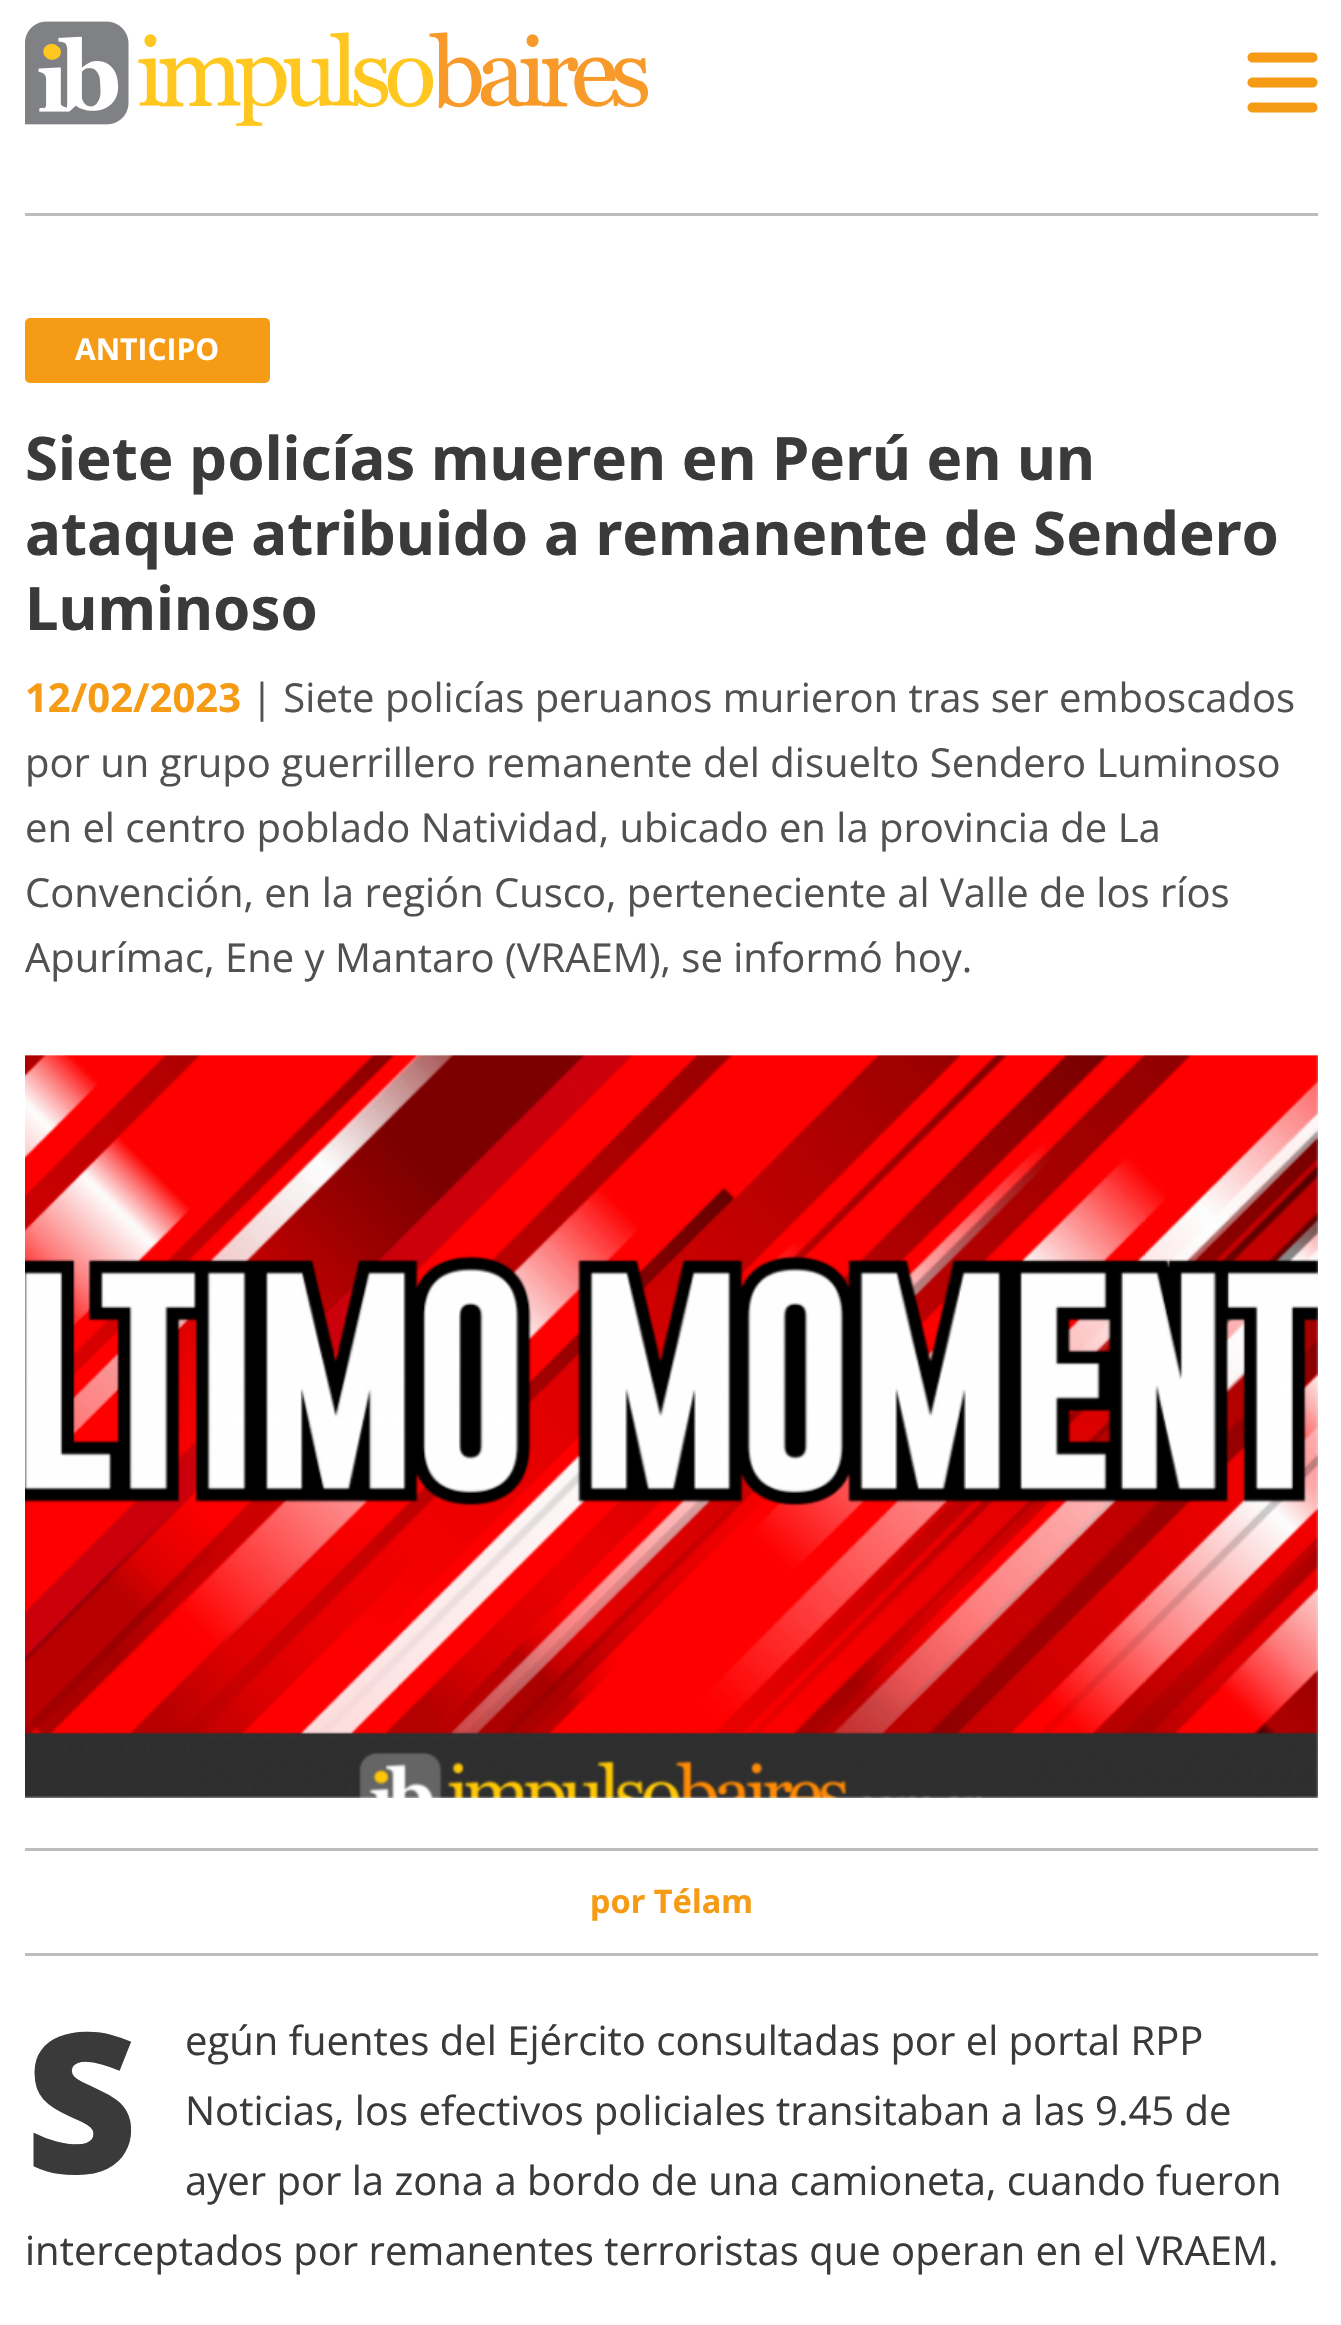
void draw(SkCanvas* canvas) {
    SkPaint paint;
    paint.setAntiAlias(true);
    canvas->clear(0xFFFFFFFF);
    canvas->drawImageRect(SkImages::DeferredFromEncodedData(SkData::MakeFromFileName("img1.png")), SkRect::MakeXYWH(25, 21, 623, 105), SkSamplingOptions());
    canvas->drawImageRect(SkImages::DeferredFromEncodedData(SkData::MakeFromFileName("img2.png")), SkRect::MakeXYWH(1247, 52, 71, 61), SkSamplingOptions());
    paint.setColor(0xFFBBBDBF);
    canvas->drawRect(SkRect::MakeXYWH(25, 213, 1293, 3), paint);
    paint.setColor(0xFFF59B15);
    canvas->drawRoundRect(SkRect::MakeXYWH(25, 318, 245, 65), 5, 5, paint);
    SkFont font1(fontMgr->matchFamilyStyle("Open Sans", SkFontStyle::Bold()), 30);
    font1.setSubpixel(true);
    paint.setColor(0xFFFFFFFF);
    canvas->drawString("ANTICIPO", 75, 360, font1, paint);
    SkFont font2(fontMgr->matchFamilyStyle("Noto Sans", SkFontStyle::Bold()), 60);
    font2.setSubpixel(true);
    paint.setColor(0xFF3A3A3A);
    canvas->drawString("Siete policías mueren en Perú en un", 25, 480, font2, paint);
    canvas->drawString("ataque atribuido a remanente de Sendero", 25, 555, font2, paint);
    canvas->drawString("Luminoso", 25, 630, font2, paint);
    SkFont font3(fontMgr->matchFamilyStyle("Open Sans", SkFontStyle::Bold()), 40);
    font3.setSubpixel(true);
    paint.setColor(0xFFF59B15);
    canvas->drawString("12/02/2023", 25, 712, font3, paint);
    SkFont font4(fontMgr->matchFamilyStyle("Open Sans", SkFontStyle::Normal()), 40);
    font4.setSubpixel(true);
    paint.setColor(0xFF515151);
    canvas->drawString("| Siete policías peruanos murieron tras ser emboscados", 251, 712, font4, paint);
    canvas->drawString("por un grupo guerrillero remanente del disuelto Sendero Luminoso", 25, 777, font4, paint);
    canvas->drawString("en el centro poblado Natividad, ubicado en la provincia de La", 25, 842, font4, paint);
    canvas->drawString("Convención, en la región Cusco, perteneciente al Valle de los ríos", 25, 907, font4, paint);
    canvas->drawString("Apurímac, Ene y Mantaro (VRAEM), se informó hoy.", 25, 972, font4, paint);
    canvas->drawImageRect(SkImages::DeferredFromEncodedData(SkData::MakeFromFileName("img3.png")), SkRect::MakeXYWH(25, 1055, 1293, 743), SkSamplingOptions());
    paint.setColor(0xFFBBBDBF);
    canvas->drawRect(SkRect::MakeXYWH(25, 1848, 1293, 3), paint);
    SkFont font5(fontMgr->matchFamilyStyle("Noto Sans", SkFontStyle::Bold()), 32.5f);
    font5.setSubpixel(true);
    paint.setColor(0xFFF59B15);
    canvas->drawString("por Télam", 590, 1913, font5, paint);
    paint.setColor(0xFFBBBDBF);
    canvas->drawRect(SkRect::MakeXYWH(25, 1953, 1293, 3), paint);
    SkFont font6(fontMgr->matchFamilyStyle("Noto Sans", SkFontStyle(900, SkFontStyle::kNormal_Width, SkFontStyle::kUpright_Slant)), 195);
    font6.setSubpixel(true);
    paint.setColor(0xFF3A3A3A);
    canvas->drawString("S", 25, 2173, font6, paint);
    canvas->drawString("egún fuentes del Ejército consultadas por el portal RPP", 185, 2055, font4, paint);
    canvas->drawString("Noticias, los efectivos policiales transitaban a las 9.45 de", 185, 2125, font4, paint);
    canvas->drawString("ayer por la zona a bordo de una camioneta, cuando fueron", 185, 2195, font4, paint);
    canvas->drawString("interceptados por remanentes terroristas que operan en el VRAEM.", 25, 2265, font4, paint);
}
